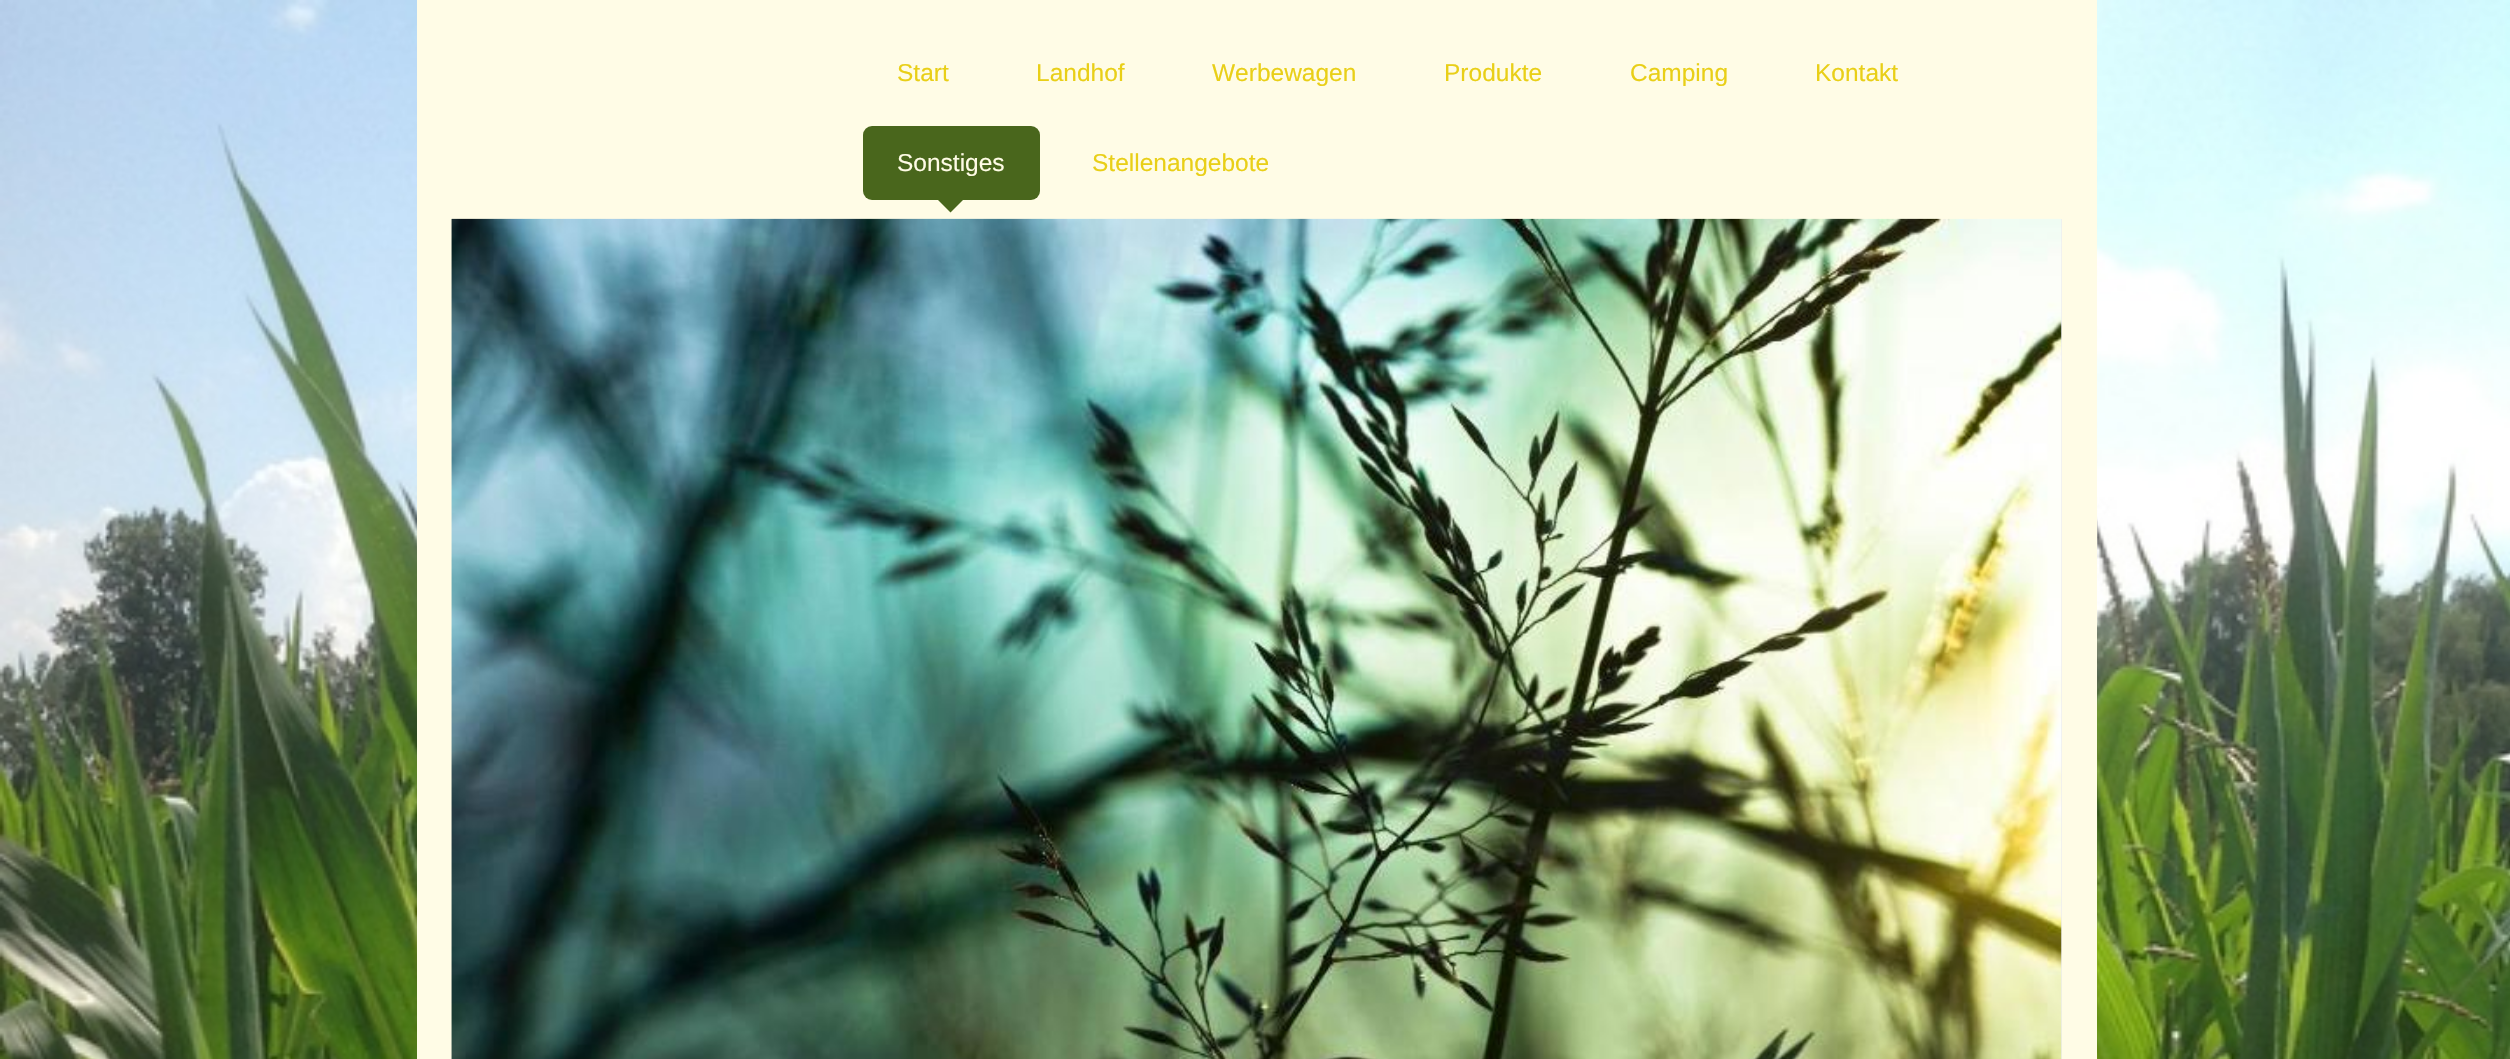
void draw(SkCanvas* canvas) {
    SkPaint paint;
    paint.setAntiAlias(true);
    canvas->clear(0xFFFFFFFF);
    canvas->drawImageRect(SkImages::DeferredFromEncodedData(SkData::MakeFromFileName("img1.png")), SkRect::MakeXYWH(0, 0, 2510, 1059), SkSamplingOptions());
    paint.setColor(0xFFFFFCE6);
    canvas->drawRect(SkRect::MakeXYWH(417, 0, 1680, 1059), paint);
    SkFont font1(fontMgr->matchFamilyStyle("Liberation Sans", SkFontStyle::Normal()), 24.5f);
    font1.setSubpixel(true);
    paint.setColor(0xFFE9CF17);
    canvas->drawString("Start", 897, 81, font1, paint);
    canvas->drawString("Landhof", 1036, 81, font1, paint);
    canvas->drawString("Werbewagen", 1212, 81, font1, paint);
    canvas->drawString("Produkte", 1444, 81, font1, paint);
    canvas->drawString("Camping", 1630, 81, font1, paint);
    canvas->drawString("Kontakt", 1815, 81, font1, paint);
    paint.setColor(0xFF49661C);
    canvas->drawRoundRect(SkRect::MakeXYWH(863, 126, 177, 74), 9, 9, paint);
    paint.setColor(0xFFFFFCE6);
    canvas->drawString("Sonstiges", 897, 171, font1, paint);
    paint.setColor(0xFF49661C);
    canvas->drawPath(SkPathBuilder().moveTo(933, 195).lineTo(968, 195).lineTo(950.5f, 212.5f).close().detach(), paint);
    paint.setColor(0xFFE9CF17);
    canvas->drawString("Stellenangebote", 1092, 171, font1, paint);
    canvas->drawImageRect(SkImages::DeferredFromEncodedData(SkData::MakeFromFileName("img2.png")), SkRect::MakeXYWH(451, 218, 1610, 841), SkSamplingOptions());
    paint.setColor(0xFFEEEEEE);
    canvas->drawRect(SkRect::MakeXYWH(2061, 219, 1, 840), paint);
    canvas->drawImageRect(SkImages::DeferredFromEncodedData(SkData::MakeFromFileName("img3.png")), SkRect::MakeXYWH(451, 218, 1611, 841), SkSamplingOptions());
}
